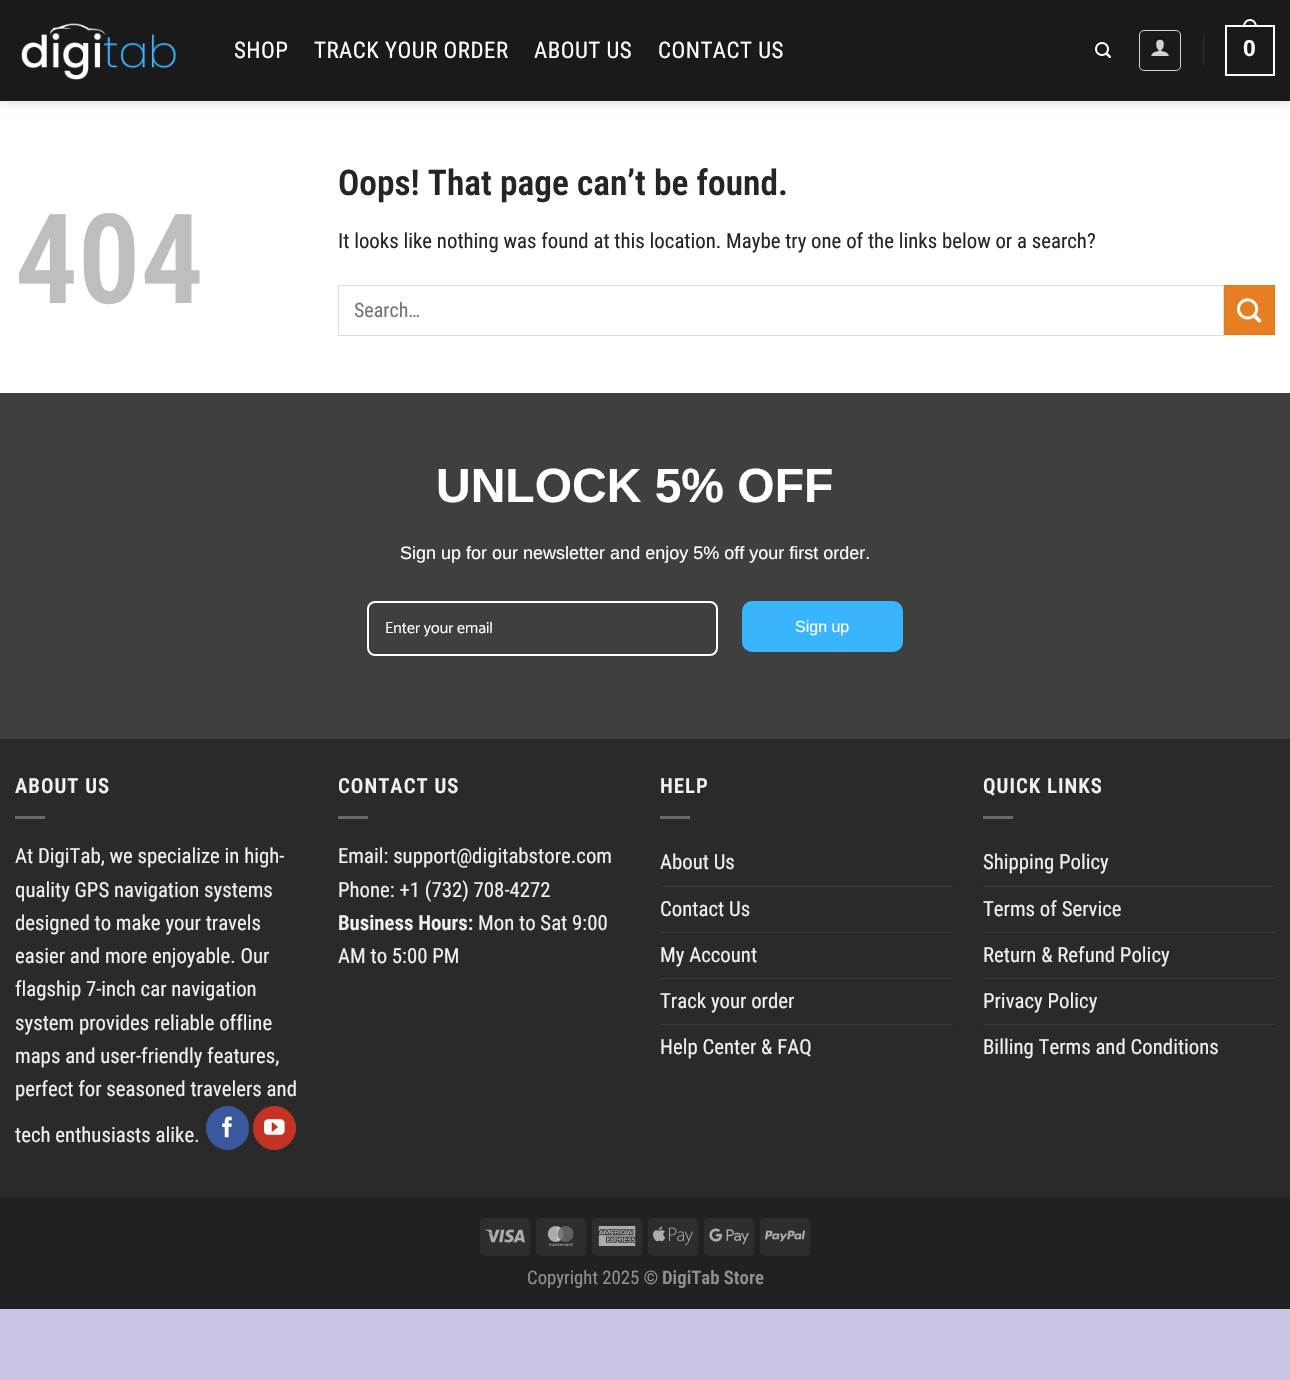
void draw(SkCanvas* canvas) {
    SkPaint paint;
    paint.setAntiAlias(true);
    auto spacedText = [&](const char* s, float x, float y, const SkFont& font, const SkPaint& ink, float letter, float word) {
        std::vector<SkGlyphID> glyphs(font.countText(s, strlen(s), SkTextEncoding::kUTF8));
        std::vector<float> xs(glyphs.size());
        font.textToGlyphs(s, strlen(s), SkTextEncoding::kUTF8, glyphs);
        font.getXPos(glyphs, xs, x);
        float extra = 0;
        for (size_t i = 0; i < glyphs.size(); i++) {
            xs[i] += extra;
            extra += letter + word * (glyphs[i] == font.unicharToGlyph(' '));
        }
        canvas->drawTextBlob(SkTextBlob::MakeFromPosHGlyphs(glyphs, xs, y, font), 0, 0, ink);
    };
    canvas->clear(0xFFCAC6E6);
    paint.setColor(0xFFFFFFFF);
    canvas->drawRect(SkRect::MakeXYWH(0, 101, 1290, 292), paint);
    paint.setColor(0x26000000);
    paint.setMaskFilter(SkMaskFilter::MakeBlur(kNormal_SkBlurStyle, 5));
    canvas->drawRect(SkRect::MakeXYWH(1, 1, 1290, 101), paint);
    paint.setMaskFilter(nullptr);
    paint.setColor(0xFF1A1A1A);
    canvas->drawRect(SkRect::MakeXYWH(0, 0, 1290, 101), paint);
    canvas->drawImageRect(SkImages::DeferredFromEncodedData(SkData::MakeFromFileName("img1.png")), SkRect::MakeXYWH(21, 23, 156, 57), SkSamplingOptions());
    SkFont font1(fontMgr->matchFamilyStyle("Roboto Condensed", SkFontStyle::Normal()), 22.9f);
    font1.setSubpixel(true);
    paint.setColor(0xFFFFFFFF);
    spacedText("SHOP", 234, 58, font1, paint, 0.5f, 0);
    spacedText("TRACK YOUR ORDER", 314, 58, font1, paint, 0.5f, 0);
    spacedText("ABOUT US", 534, 58, font1, paint, 0.5f, 0);
    spacedText("CONTACT US", 658, 58, font1, paint, 0.5f, 0);
    canvas->drawImageRect(SkImages::DeferredFromEncodedData(SkData::MakeFromFileName("img2.png")), SkRect::MakeXYWH(1095, 42, 16, 16), SkSamplingOptions());
    paint.setStyle(SkPaint::kStroke_Style);
    paint.setStrokeWidth(1);
    paint.setColor(0xFFD1D1D1);
    canvas->drawRoundRect(SkRect::MakeXYWH(1139.5f, 30.5f, 41, 40), 4.5f, 4.5f, paint);
    canvas->drawImageRect(SkImages::DeferredFromEncodedData(SkData::MakeFromFileName("img3.png")), SkRect::MakeXYWH(1151, 39, 18, 17), SkSamplingOptions());
    paint.setStyle(SkPaint::kFill_Style);
    paint.setColor(0xFF313131);
    canvas->drawRect(SkRect::MakeXYWH(1203, 35, 1, 30), paint);
    paint.setStyle(SkPaint::kStroke_Style);
    paint.setStrokeWidth(2);
    paint.setColor(0xFFFFFFFF);
    canvas->drawRect(SkRect::MakeXYWH(1226, 26, 48, 49), paint);
    paint.setStyle(SkPaint::kFill_Style);
    canvas->drawPath(SkPathBuilder(SkPathFillType::kEvenOdd).moveTo(1250, 19).cubicTo(1254.5f, 19, 1257, 23, 1257, 27).lineTo(1243, 27).cubicTo(1243, 23, 1245.5f, 19, 1250, 19).close().moveTo(1250, 21).cubicTo(1253.5f, 21, 1255, 24, 1255, 27).lineTo(1245, 27).cubicTo(1245, 24, 1246.5f, 21, 1250, 21).close().detach(), paint);
    SkFont font2(fontMgr->matchFamilyStyle("Liberation Sans", SkFontStyle::Bold()), 22.9f);
    font2.setSubpixel(true);
    spacedText("0", 1243, 56, font2, paint, 0.5f, 0);
    SkFont font3(fontMgr->matchFamilyStyle("Roboto Condensed", SkFontStyle(600, SkFontStyle::kNormal_Width, SkFontStyle::kUpright_Slant)), 125);
    font3.setSubpixel(true);
    paint.setColor(0xFFBDBEBF);
    canvas->drawString("404", 15, 303, font3, paint);
    SkFont font4(fontMgr->matchFamilyStyle("Roboto Condensed", SkFontStyle(600, SkFontStyle::kNormal_Width, SkFontStyle::kUpright_Slant)), 35.4f);
    font4.setSubpixel(true);
    paint.setColor(0xFF22262A);
    canvas->drawString("Oops! That page can’t be found.", 338, 195, font4, paint);
    SkFont font5(fontMgr->matchFamilyStyle("Roboto Condensed", SkFontStyle::Normal()), 20.8f);
    font5.setSubpixel(true);
    canvas->drawString("It looks like nothing was found at this location. Maybe try one of the links below or a search?", 338, 248, font5, paint);
    paint.setStyle(SkPaint::kStroke_Style);
    paint.setStrokeWidth(1);
    paint.setColor(0xFFDDDDDD);
    canvas->drawRect(SkRect::MakeXYWH(338.5f, 285.5f, 885, 50), paint);
    SkFont font6(fontMgr->matchFamilyStyle("Roboto Condensed", SkFontStyle::Normal()), 20);
    font6.setSubpixel(true);
    paint.setStyle(SkPaint::kFill_Style);
    paint.setColor(0xFF757575);
    canvas->drawString("Search…", 354, 317, font6, paint);
    paint.setColor(0xFFE67E22);
    canvas->drawRect(SkRect::MakeXYWH(1224.5f, 285.5f, 50, 49), paint);
    paint.setStyle(SkPaint::kStroke_Style);
    paint.setColor(0xFFDB7820);
    canvas->drawRect(SkRect::MakeXYWH(1224.5f, 285.5f, 50, 49), paint);
    canvas->drawImageRect(SkImages::DeferredFromEncodedData(SkData::MakeFromFileName("img4.png")), SkRect::MakeXYWH(1237, 298, 25, 25), SkSamplingOptions());
    paint.setStyle(SkPaint::kFill_Style);
    paint.setColor(0xFF3F3F3F);
    canvas->drawRect(SkRect::MakeXYWH(0, 394, 1290, 345), paint);
    paint.setColor(0xFF3C3C3C);
    canvas->drawRect(SkRect::MakeXYWH(0, 393, 1290, 1), paint);
    SkFont font7(fontMgr->matchFamilyStyle("Liberation Sans", SkFontStyle::Bold()), 48);
    font7.setSubpixel(true);
    paint.setColor(0xFFFFFFFF);
    canvas->drawString("UNLOCK 5% OFF", 436, 502, font7, paint);
    SkFont font8(fontMgr->matchFamilyStyle("Liberation Sans", SkFontStyle::Normal()), 18);
    font8.setSubpixel(true);
    canvas->drawString("Sign up for our newsletter and enjoy 5% off your first order.", 400, 559, font8, paint);
    paint.setStyle(SkPaint::kStroke_Style);
    paint.setStrokeWidth(2);
    canvas->drawRoundRect(SkRect::MakeXYWH(368, 602, 349, 53), 7, 7, paint);
    SkFont font9(fontMgr->matchFamilyStyle("Catamaran", SkFontStyle::Normal()), 16);
    font9.setSubpixel(true);
    paint.setStyle(SkPaint::kFill_Style);
    canvas->drawString("Enter your email", 385, 633, font9, paint);
    paint.setColor(0xFF39B5FE);
    canvas->drawRoundRect(SkRect::MakeXYWH(742, 601, 161, 51), 10, 10, paint);
    SkFont font10(fontMgr->matchFamilyStyle("Liberation Sans", SkFontStyle::Normal()), 16);
    font10.setSubpixel(true);
    paint.setColor(0xFFFFFFFF);
    canvas->drawString("Sign up", 795, 632, font10, paint);
    paint.setColor(0xFF2A2A2A);
    canvas->drawRect(SkRect::MakeXYWH(0, 740, 1290, 458), paint);
    paint.setColor(0xFF282828);
    canvas->drawRect(SkRect::MakeXYWH(0, 739, 1290, 1), paint);
    SkFont font11(fontMgr->matchFamilyStyle("Roboto Condensed", SkFontStyle(600, SkFontStyle::kNormal_Width, SkFontStyle::kUpright_Slant)), 20.8f);
    font11.setSubpixel(true);
    paint.setColor(0xFFF1F1F1);
    spacedText("ABOUT US", 15, 793, font11, paint, 1, 0);
    paint.setColor(0xFF6A6A6A);
    canvas->drawRect(SkRect::MakeXYWH(15, 816, 30, 3), paint);
    paint.setColor(0xFFF1F1F1);
    canvas->drawString("At DigiTab, we specialize in high-", 15, 863, font5, paint);
    canvas->drawString("quality GPS navigation systems", 15, 897, font5, paint);
    canvas->drawString("designed to make your travels", 15, 930, font5, paint);
    canvas->drawString("easier and more enjoyable. Our", 15, 963, font5, paint);
    canvas->drawString("flagship 7-inch car navigation", 15, 996, font5, paint);
    canvas->drawString("system provides reliable offline", 15, 1030, font5, paint);
    canvas->drawString("maps and user-friendly features,", 15, 1063, font5, paint);
    canvas->drawString("perfect for seasoned travelers and", 15, 1096, font5, paint);
    canvas->drawString("tech enthusiasts alike.", 15, 1142, font5, paint);
    paint.setColor(0xFF3A589D);
    canvas->drawRoundRect(SkRect::MakeXYWH(206.5f, 1106.5f, 42, 43), 21, 21, paint);
    paint.setStyle(SkPaint::kStroke_Style);
    paint.setStrokeWidth(1);
    canvas->drawRoundRect(SkRect::MakeXYWH(206.5f, 1106.5f, 42, 43), 21, 21, paint);
    canvas->drawImageRect(SkImages::DeferredFromEncodedData(SkData::MakeFromFileName("img5.png")), SkRect::MakeXYWH(222, 1116, 10, 22), SkSamplingOptions());
    paint.setStyle(SkPaint::kFill_Style);
    paint.setColor(0xFFC33223);
    canvas->drawRoundRect(SkRect::MakeXYWH(253.5f, 1106.5f, 42, 43), 21, 21, paint);
    paint.setStyle(SkPaint::kStroke_Style);
    canvas->drawRoundRect(SkRect::MakeXYWH(253.5f, 1106.5f, 42, 43), 21, 21, paint);
    canvas->drawImageRect(SkImages::DeferredFromEncodedData(SkData::MakeFromFileName("img6.png")), SkRect::MakeXYWH(264, 1119, 21, 16), SkSamplingOptions());
    paint.setStyle(SkPaint::kFill_Style);
    paint.setColor(0xFFF1F1F1);
    spacedText("CONTACT US", 338, 793, font11, paint, 1, 0);
    paint.setColor(0xFF6A6A6A);
    canvas->drawRect(SkRect::MakeXYWH(338, 816, 30, 3), paint);
    paint.setColor(0xFFF1F1F1);
    canvas->drawString("Email: support@digitabstore.com", 338, 863, font5, paint);
    canvas->drawString("Phone: +1 (732) 708-4272", 338, 897, font5, paint);
    canvas->drawString("Business Hours:", 338, 930, font11, paint);
    canvas->drawString("Mon to Sat 9:00", 478, 930, font5, paint);
    canvas->drawString("AM to 5:00 PM", 338, 963, font5, paint);
    spacedText("HELP", 660, 793, font11, paint, 1, 0);
    paint.setColor(0xFF6A6A6A);
    canvas->drawRect(SkRect::MakeXYWH(660, 816, 30, 3), paint);
    paint.setColor(0xFFF1F1F1);
    canvas->drawString("About Us", 660, 869, font5, paint);
    paint.setColor(0xFF3B3B3B);
    canvas->drawRect(SkRect::MakeXYWH(660, 886, 293, 1), paint);
    paint.setColor(0xFFF1F1F1);
    canvas->drawString("Contact Us", 660, 916, font5, paint);
    paint.setColor(0xFF3B3B3B);
    canvas->drawRect(SkRect::MakeXYWH(660, 932, 293, 1), paint);
    paint.setColor(0xFFF1F1F1);
    canvas->drawString("My Account", 660, 962, font5, paint);
    paint.setColor(0xFF3B3B3B);
    canvas->drawRect(SkRect::MakeXYWH(660, 978, 293, 1), paint);
    paint.setColor(0xFFF1F1F1);
    canvas->drawString("Track your order", 660, 1008, font5, paint);
    paint.setColor(0xFF3B3B3B);
    canvas->drawRect(SkRect::MakeXYWH(660, 1024, 293, 1), paint);
    paint.setColor(0xFFF1F1F1);
    canvas->drawString("Help Center & FAQ", 660, 1054, font5, paint);
    spacedText("QUICK LINKS", 983, 793, font11, paint, 1, 0);
    paint.setColor(0xFF6A6A6A);
    canvas->drawRect(SkRect::MakeXYWH(983, 816, 30, 3), paint);
    paint.setColor(0xFFF1F1F1);
    canvas->drawString("Shipping Policy", 983, 869, font5, paint);
    paint.setColor(0xFF3B3B3B);
    canvas->drawRect(SkRect::MakeXYWH(983, 886, 292, 1), paint);
    paint.setColor(0xFFF1F1F1);
    canvas->drawString("Terms of Service", 983, 916, font5, paint);
    paint.setColor(0xFF3B3B3B);
    canvas->drawRect(SkRect::MakeXYWH(983, 932, 292, 1), paint);
    paint.setColor(0xFFF1F1F1);
    canvas->drawString("Return & Refund Policy", 983, 962, font5, paint);
    paint.setColor(0xFF3B3B3B);
    canvas->drawRect(SkRect::MakeXYWH(983, 978, 292, 1), paint);
    paint.setColor(0xFFF1F1F1);
    canvas->drawString("Privacy Policy", 983, 1008, font5, paint);
    paint.setColor(0xFF3B3B3B);
    canvas->drawRect(SkRect::MakeXYWH(983, 1024, 292, 1), paint);
    paint.setColor(0xFFF1F1F1);
    canvas->drawString("Billing Terms and Conditions", 983, 1054, font5, paint);
    paint.setColor(0xFF202124);
    canvas->drawRect(SkRect::MakeXYWH(0, 1198, 1290, 111), paint);
    paint.setColor(0xFF2D2E31);
    canvas->drawRoundRect(SkRect::MakeXYWH(480, 1218, 50, 38), 5, 5, paint);
    canvas->drawImageRect(SkImages::DeferredFromEncodedData(SkData::MakeFromFileName("img7.png")), SkRect::MakeXYWH(485, 1229, 40, 14), SkSamplingOptions());
    canvas->drawRoundRect(SkRect::MakeXYWH(536, 1218, 50, 38), 5, 5, paint);
    canvas->drawImageRect(SkImages::DeferredFromEncodedData(SkData::MakeFromFileName("img8.png")), SkRect::MakeXYWH(547, 1226, 27, 20), SkSamplingOptions());
    canvas->drawRoundRect(SkRect::MakeXYWH(592, 1218, 50, 38), 5, 5, paint);
    canvas->drawImageRect(SkImages::DeferredFromEncodedData(SkData::MakeFromFileName("img9.png")), SkRect::MakeXYWH(598, 1226, 38, 20), SkSamplingOptions());
    canvas->drawRoundRect(SkRect::MakeXYWH(648, 1218, 50, 38), 5, 5, paint);
    canvas->drawImageRect(SkImages::DeferredFromEncodedData(SkData::MakeFromFileName("img10.png")), SkRect::MakeXYWH(653, 1226, 40, 20), SkSamplingOptions());
    canvas->drawRoundRect(SkRect::MakeXYWH(704, 1218, 50, 38), 5, 5, paint);
    canvas->drawImageRect(SkImages::DeferredFromEncodedData(SkData::MakeFromFileName("img11.png")), SkRect::MakeXYWH(709, 1228, 40, 17), SkSamplingOptions());
    canvas->drawRoundRect(SkRect::MakeXYWH(760, 1218, 50, 38), 5, 5, paint);
    canvas->drawImageRect(SkImages::DeferredFromEncodedData(SkData::MakeFromFileName("img12.png")), SkRect::MakeXYWH(765, 1230, 40, 12), SkSamplingOptions());
    SkFont font12(fontMgr->matchFamilyStyle("Roboto Condensed", SkFontStyle::Normal()), 18.75f);
    font12.setSubpixel(true);
    paint.setColor(0xFF909092);
    canvas->drawString("Copyright 2025 ©", 527, 1284, font12, paint);
    SkFont font13(fontMgr->matchFamilyStyle("Roboto Condensed", SkFontStyle(600, SkFontStyle::kNormal_Width, SkFontStyle::kUpright_Slant)), 18.75f);
    font13.setSubpixel(true);
    canvas->drawString("DigiTab Store", 662, 1284, font13, paint);
}
